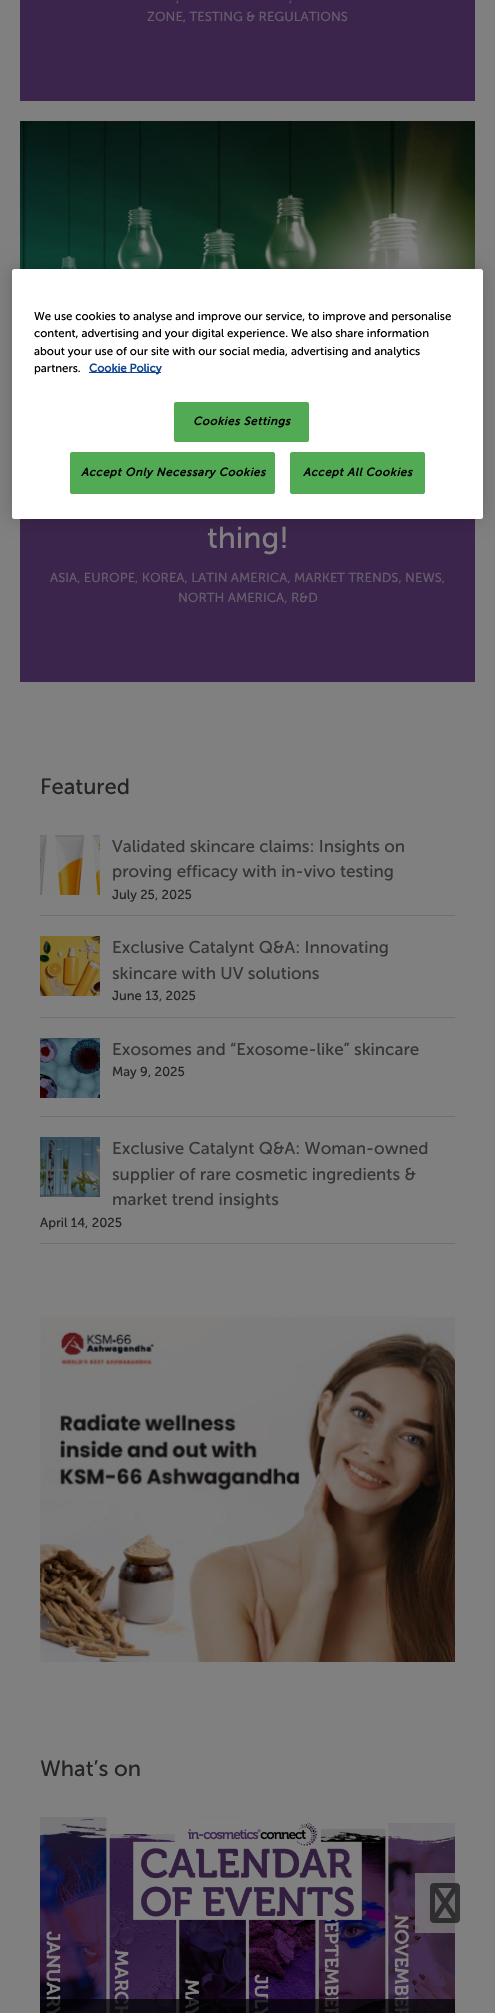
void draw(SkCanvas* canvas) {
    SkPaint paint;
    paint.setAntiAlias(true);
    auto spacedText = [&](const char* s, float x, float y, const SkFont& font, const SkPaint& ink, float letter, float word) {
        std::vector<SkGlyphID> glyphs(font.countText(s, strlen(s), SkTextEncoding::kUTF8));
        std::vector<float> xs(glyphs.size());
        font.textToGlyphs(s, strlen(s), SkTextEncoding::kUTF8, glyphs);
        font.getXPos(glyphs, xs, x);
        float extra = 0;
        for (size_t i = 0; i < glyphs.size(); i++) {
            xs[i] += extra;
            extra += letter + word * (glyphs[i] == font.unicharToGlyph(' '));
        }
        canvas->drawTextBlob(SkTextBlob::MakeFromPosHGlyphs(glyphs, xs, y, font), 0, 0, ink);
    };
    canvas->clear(0xFF808080);
    paint.setColor(0xFF3C254C);
    canvas->drawRect(SkRect::MakeXYWH(20, 0, 455, 101), paint);
    SkFont font1(fontMgr->matchFamilyStyle("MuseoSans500", SkFontStyle::Normal()), 13);
    font1.setSubpixel(true);
    paint.setColor(0xFF655C6B);
    canvas->drawString(",", 176, 2, font1, paint);
    canvas->drawString(",", 289, 2, font1, paint);
    canvas->drawString("ZONE, TESTING & REGULATIONS", 147, 21, font1, paint);
    paint.setColor(0xFF3C254C);
    canvas->drawRect(SkRect::MakeXYWH(20, 519, 455, 163), paint);
    canvas->drawImageRect(SkImages::DeferredFromEncodedData(SkData::MakeFromFileName("img1.png")), SkRect::MakeXYWH(20, 121, 455, 148), SkSamplingOptions());
    SkFont font2(fontMgr->matchFamilyStyle("MuseoSans500", SkFontStyle::Normal()), 30);
    font2.setSubpixel(true);
    paint.setColor(0xFF808080);
    canvas->drawString("thing!", 207, 548, font2, paint);
    paint.setColor(0xFF655C6B);
    canvas->drawString("ASIA, EUROPE, KOREA, LATIN AMERICA, MARKET TRENDS, NEWS,", 50, 582, font1, paint);
    canvas->drawString("NORTH AMERICA, R&D", 178, 602, font1, paint);
    SkFont font3(fontMgr->matchFamilyStyle("MuseoSans500", SkFontStyle::Normal()), 22);
    font3.setSubpixel(true);
    paint.setColor(0xFF242424);
    canvas->drawString("Featured", 40, 794, font3, paint);
    paint.setColor(0xFF6F6F6F);
    canvas->drawRect(SkRect::MakeXYWH(40, 915, 415, 1), paint);
    canvas->drawImageRect(SkImages::DeferredFromEncodedData(SkData::MakeFromFileName("img2.png")), SkRect::MakeXYWH(40, 835, 60, 60), SkSamplingOptions());
    SkFont font4(fontMgr->matchFamilyStyle("MuseoSans500", SkFontStyle::Normal()), 17);
    font4.setSubpixel(true);
    paint.setColor(0xFF353535);
    canvas->drawString("Validated skincare claims: Insights on", 112, 852, font4, paint);
    canvas->drawString("proving efficacy with in-vivo testing", 112, 877, font4, paint);
    paint.setColor(0xFF242424);
    canvas->drawString("July 25, 2025", 112, 899, font1, paint);
    paint.setColor(0xFF6F6F6F);
    canvas->drawRect(SkRect::MakeXYWH(40, 1017, 415, 1), paint);
    canvas->drawImageRect(SkImages::DeferredFromEncodedData(SkData::MakeFromFileName("img3.png")), SkRect::MakeXYWH(40, 936, 60, 60), SkSamplingOptions());
    paint.setColor(0xFF353535);
    canvas->drawString("Exclusive Catalynt Q&A: Innovating", 112, 953, font4, paint);
    canvas->drawString("skincare with UV solutions", 112, 979, font4, paint);
    paint.setColor(0xFF242424);
    canvas->drawString("June 13, 2025", 112, 1000, font1, paint);
    paint.setColor(0xFF6F6F6F);
    canvas->drawRect(SkRect::MakeXYWH(40, 1116, 415, 1), paint);
    canvas->drawImageRect(SkImages::DeferredFromEncodedData(SkData::MakeFromFileName("img4.png")), SkRect::MakeXYWH(40, 1038, 60, 60), SkSamplingOptions());
    paint.setColor(0xFF353535);
    canvas->drawString("Exosomes and “Exosome-like” skincare", 112, 1055, font4, paint);
    paint.setColor(0xFF242424);
    canvas->drawString("May 9, 2025", 112, 1076, font1, paint);
    paint.setColor(0xFF6F6F6F);
    canvas->drawRect(SkRect::MakeXYWH(40, 1243, 415, 1), paint);
    canvas->drawImageRect(SkImages::DeferredFromEncodedData(SkData::MakeFromFileName("img5.png")), SkRect::MakeXYWH(40, 1137, 60, 60), SkSamplingOptions());
    paint.setColor(0xFF353535);
    canvas->drawString("Exclusive Catalynt Q&A: Woman-owned", 112, 1154, font4, paint);
    canvas->drawString("supplier of rare cosmetic ingredients &", 112, 1180, font4, paint);
    canvas->drawString("market trend insights", 112, 1205, font4, paint);
    paint.setColor(0xFF242424);
    canvas->drawString("April 14, 2025", 40, 1227, font1, paint);
    canvas->drawImageRect(SkImages::DeferredFromEncodedData(SkData::MakeFromFileName("img6.png")), SkRect::MakeXYWH(40, 1316, 415, 346), SkSamplingOptions());
    canvas->drawString("What’s on", 40, 1776, font3, paint);
    canvas->drawImageRect(SkImages::DeferredFromEncodedData(SkData::MakeFromFileName("img7.png")), SkRect::MakeXYWH(40, 1817, 415, 196), SkSamplingOptions());
    paint.setColor(0xB3000000);
    canvas->drawRect(SkRect::MakeXYWH(40, 1999, 415, 14), paint);
    paint.setColor(0x33000000);
    paint.setMaskFilter(SkMaskFilter::MakeBlur(kNormal_SkBlurStyle, 9));
    canvas->drawRoundRect(SkRect::MakeXYWH(12, 269, 471, 250), 2.5f, 2.5f, paint);
    paint.setMaskFilter(nullptr);
    paint.setColor(0xFFFFFFFF);
    canvas->drawRoundRect(SkRect::MakeXYWH(12, 269, 471, 250), 2.5f, 2.5f, paint);
    SkFont font5(fontMgr->matchFamilyStyle("MuseoSans500", SkFontStyle::Normal()), 11.4f);
    font5.setSubpixel(true);
    paint.setColor(0xFF000000);
    canvas->drawString("We use cookies to analyse and improve our service, to improve and personalise", 34, 320, font5, paint);
    canvas->drawString("content, advertising and your digital experience. We also share information", 34, 337, font5, paint);
    canvas->drawString("about your use of our site with our social media, advertising and analytics", 34, 355, font5, paint);
    canvas->drawString("partners.", 34, 372, font5, paint);
    paint.setColor(0xFF104593);
    canvas->drawRect(SkRect::MakeXYWH(89, 372, 72, 1), paint);
    SkFont font6(fontMgr->matchFamilyStyle("MuseoSans500", SkFontStyle::Bold()), 11.4f);
    font6.setSubpixel(true);
    canvas->drawString("Cookie Policy", 89, 372, font6, paint);
    paint.setColor(0xFF52AA55);
    canvas->drawRoundRect(SkRect::MakeXYWH(174, 402, 135, 40), 2, 2, paint);
    SkFont font7(fontMgr->matchFamilyStyle("MuseoSans500", SkFontStyle::BoldItalic()), 11.4f);
    font7.setSubpixel(true);
    paint.setColor(0xFF000000);
    spacedText("Cookies Settings", 193, 425, font7, paint, 0.6f, 0);
    paint.setColor(0xFF52AA55);
    canvas->drawRoundRect(SkRect::MakeXYWH(70.5f, 452.5f, 204, 41), 1.5f, 1.5f, paint);
    paint.setStyle(SkPaint::kStroke_Style);
    paint.setStrokeWidth(1);
    canvas->drawRoundRect(SkRect::MakeXYWH(70.5f, 452.5f, 204, 41), 1.5f, 1.5f, paint);
    paint.setStyle(SkPaint::kFill_Style);
    paint.setColor(0xFF000000);
    spacedText("Accept Only Necessary Cookies", 81, 476, font7, paint, 0.6f, 0);
    paint.setColor(0xFF52AA55);
    canvas->drawRoundRect(SkRect::MakeXYWH(290.5f, 452.5f, 134, 41), 1.5f, 1.5f, paint);
    paint.setStyle(SkPaint::kStroke_Style);
    canvas->drawRoundRect(SkRect::MakeXYWH(290.5f, 452.5f, 134, 41), 1.5f, 1.5f, paint);
    paint.setStyle(SkPaint::kFill_Style);
    paint.setColor(0xFF000000);
    spacedText("Accept All Cookies", 303, 476, font7, paint, 0.6f, 0);
    paint.setColor(0xC4808080);
    canvas->drawRect(SkRect::MakeXYWH(415, 1873, 40, 60), paint);
    canvas->drawImageRect(SkImages::DeferredFromEncodedData(SkData::MakeFromFileName("img8.png")), SkRect::MakeXYWH(430, 1883, 30, 40), SkSamplingOptions());
}
